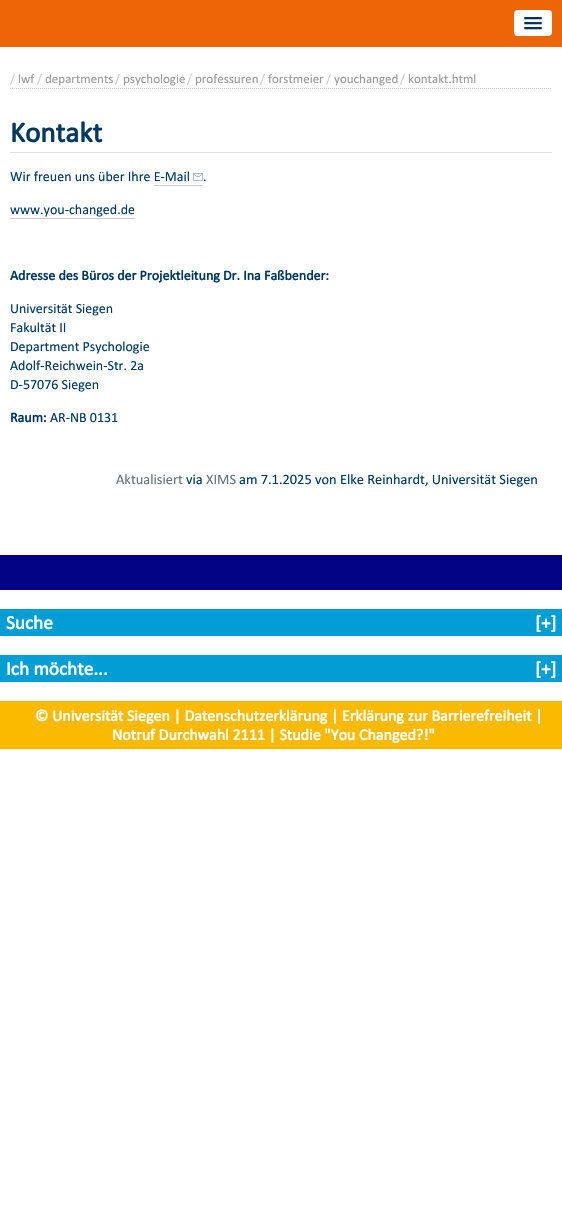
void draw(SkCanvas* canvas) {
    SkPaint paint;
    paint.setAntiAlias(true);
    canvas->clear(0xFFFFFFFF);
    paint.setColor(0xFFEC6608);
    canvas->drawRect(SkRect::MakeXYWH(0, 0, 562, 47), paint);
    paint.setColor(0xFFFFFFFF);
    canvas->drawRoundRect(SkRect::MakeXYWH(514, 10, 38, 26), 4, 4, paint);
    paint.setColor(0xFFBFBFBF);
    canvas->drawPath(SkPathBuilder().moveTo(524, 18.5f).cubicTo(523, 20.5f, 527.5f, 20, 527.5f, 20).lineTo(538.5f, 20).cubicTo(538.5f, 20, 543, 20.5f, 542, 18.5f).cubicTo(541, 19.5f, 534.5f, 19, 533, 19).cubicTo(531.5f, 19, 525, 19.5f, 524, 18.5f).close().detach(), paint);
    paint.setColor(0xFF00365E);
    canvas->drawRoundRect(SkRect::MakeXYWH(524, 17, 18, 2), 1, 1, paint);
    paint.setColor(0xFFBFBFBF);
    canvas->drawPath(SkPathBuilder().moveTo(524, 23.5f).cubicTo(523, 25.5f, 527.5f, 25, 527.5f, 25).lineTo(538.5f, 25).cubicTo(538.5f, 25, 543, 25.5f, 542, 23.5f).cubicTo(541, 24.5f, 534.5f, 24, 533, 24).cubicTo(531.5f, 24, 525, 24.5f, 524, 23.5f).close().detach(), paint);
    paint.setColor(0xFF00365E);
    canvas->drawRoundRect(SkRect::MakeXYWH(524, 22, 18, 2), 1, 1, paint);
    paint.setColor(0xFFBFBFBF);
    canvas->drawPath(SkPathBuilder().moveTo(524, 28.5f).cubicTo(523, 30.5f, 527.5f, 30, 527.5f, 30).lineTo(538.5f, 30).cubicTo(538.5f, 30, 543, 30.5f, 542, 28.5f).cubicTo(541, 29.5f, 534.5f, 29, 533, 29).cubicTo(531.5f, 29, 525, 29.5f, 524, 28.5f).close().detach(), paint);
    paint.setColor(0xFF00365E);
    canvas->drawRoundRect(SkRect::MakeXYWH(524, 27, 18, 2), 1, 1, paint);
    paint.setStyle(SkPaint::kStroke_Style);
    paint.setStrokeWidth(1);
    paint.setColor(0xFFCCCCCC);
    paint.setPathEffect(SkDashPathEffect::Make({{1, 1}}, 0));
    canvas->drawPath(SkPathBuilder().moveTo(10, 88.5f).lineTo(552, 88.5f).detach(), paint);
    paint.setPathEffect(nullptr);
    SkFont font1(fontMgr->matchFamilyStyle("Calibri", SkFontStyle::Normal()), 13);
    font1.setSubpixel(true);
    paint.setStyle(SkPaint::kFill_Style);
    canvas->drawString("/", 10, 83, font1, paint);
    paint.setColor(0xFF999999);
    canvas->drawString("lwf", 18, 83, font1, paint);
    paint.setColor(0xFFCCCCCC);
    canvas->drawString("/", 37, 83, font1, paint);
    paint.setColor(0xFF999999);
    canvas->drawString("departments", 45, 83, font1, paint);
    paint.setColor(0xFFCCCCCC);
    canvas->drawString("/", 115, 83, font1, paint);
    paint.setColor(0xFF999999);
    canvas->drawString("psychologie", 123, 83, font1, paint);
    paint.setColor(0xFFCCCCCC);
    canvas->drawString("/", 187, 83, font1, paint);
    paint.setColor(0xFF999999);
    canvas->drawString("professuren", 195, 83, font1, paint);
    paint.setColor(0xFFCCCCCC);
    canvas->drawString("/", 260, 83, font1, paint);
    paint.setColor(0xFF999999);
    canvas->drawString("forstmeier", 268, 83, font1, paint);
    paint.setColor(0xFFCCCCCC);
    canvas->drawString("/", 326, 83, font1, paint);
    paint.setColor(0xFF999999);
    canvas->drawString("youchanged", 334, 83, font1, paint);
    paint.setColor(0xFFCCCCCC);
    canvas->drawString("/", 400, 83, font1, paint);
    paint.setColor(0xFF999999);
    canvas->drawString("kontakt.html", 408, 83, font1, paint);
    paint.setColor(0xFFDEE2E6);
    canvas->drawRect(SkRect::MakeXYWH(10, 152, 542, 1), paint);
    SkFont font2(fontMgr->matchFamilyStyle("Calibri", SkFontStyle::Bold()), 29);
    font2.setSubpixel(true);
    paint.setColor(0xFF00385F);
    canvas->drawString("Kontakt", 10, 142, font2, paint);
    SkFont font3(fontMgr->matchFamilyStyle("Calibri", SkFontStyle::Normal()), 14);
    font3.setSubpixel(true);
    canvas->drawString("Wir freuen uns über Ihre E-Mail", 10, 181, font3, paint);
    canvas->drawImageRect(SkImages::DeferredFromEncodedData(SkData::MakeFromFileName("img1.png")), SkRect::MakeXYWH(193, 173, 10, 8), SkSamplingOptions());
    canvas->drawString(".", 203, 181, font3, paint);
    paint.setColor(0xFFCCCCCC);
    canvas->drawRect(SkRect::MakeXYWH(154, 185, 49, 1), paint);
    paint.setColor(0xFF00385F);
    canvas->drawString("www.you-changed.de", 10, 214, font3, paint);
    paint.setColor(0xFFCCCCCC);
    canvas->drawRect(SkRect::MakeXYWH(10, 218, 125, 1), paint);
    SkFont font4(fontMgr->matchFamilyStyle("Calibri", SkFontStyle::Bold()), 14);
    font4.setSubpixel(true);
    paint.setColor(0xFF00385F);
    canvas->drawString("Adresse des Büros der Projektleitung Dr. Ina Faßbender:", 10, 280, font4, paint);
    canvas->drawString("Universität Siegen", 10, 313, font3, paint);
    canvas->drawString("Fakultät II", 10, 332, font3, paint);
    canvas->drawString("Department Psychologie", 10, 351, font3, paint);
    canvas->drawString("Adolf-Reichwein-Str. 2a", 10, 370, font3, paint);
    canvas->drawString("D-57076 Siegen", 10, 389, font3, paint);
    canvas->drawString("Raum:", 10, 422, font4, paint);
    canvas->drawString("AR-NB 0131", 50, 422, font3, paint);
    SkFont font5(fontMgr->matchFamilyStyle("Calibri", SkFontStyle::Normal()), 14.4f);
    font5.setSubpixel(true);
    paint.setColor(0xFF64727F);
    canvas->drawString("Aktualisiert", 116, 484, font5, paint);
    paint.setColor(0xFF00385F);
    canvas->drawString("via", 186, 484, font5, paint);
    paint.setColor(0xFF64727F);
    canvas->drawString("XIMS", 206, 484, font5, paint);
    paint.setColor(0xFF00385F);
    canvas->drawString("am 7.1.2025 von Elke Reinhardt, Universität Siegen", 239, 484, font5, paint);
    paint.setColor(0xFF030385);
    canvas->drawRect(SkRect::MakeXYWH(0, 555, 562, 35), paint);
    paint.setColor(0xFF009ED4);
    canvas->drawRect(SkRect::MakeXYWH(0, 609, 562, 27), paint);
    SkFont font6(fontMgr->matchFamilyStyle("Calibri", SkFontStyle::Bold()), 19.25f);
    font6.setSubpixel(true);
    paint.setColor(0xFFFFFFFF);
    canvas->drawString("Suche", 6, 629, font6, paint);
    canvas->drawString("[+]", 535, 629, font6, paint);
    paint.setColor(0xFF009ED4);
    canvas->drawRect(SkRect::MakeXYWH(0, 655, 562, 27), paint);
    paint.setColor(0xFFFFFFFF);
    canvas->drawString("Ich möchte...", 6, 675, font6, paint);
    canvas->drawString("[+]", 535, 675, font6, paint);
    paint.setColor(0xFFFBBA00);
    canvas->drawRect(SkRect::MakeXYWH(0, 701, 562, 48), paint);
    SkFont font7(fontMgr->matchFamilyStyle("Calibri", SkFontStyle::Bold()), 16);
    font7.setSubpixel(true);
    paint.setColor(0xFFFFFFFF);
    canvas->drawString("© Universität Siegen | Datenschutzerklärung | Erklärung zur Barrierefreiheit |", 35, 721, font7, paint);
    canvas->drawString("Notruf Durchwahl 2111 | Studie \"You Changed?!\"", 112, 740, font7, paint);
}
